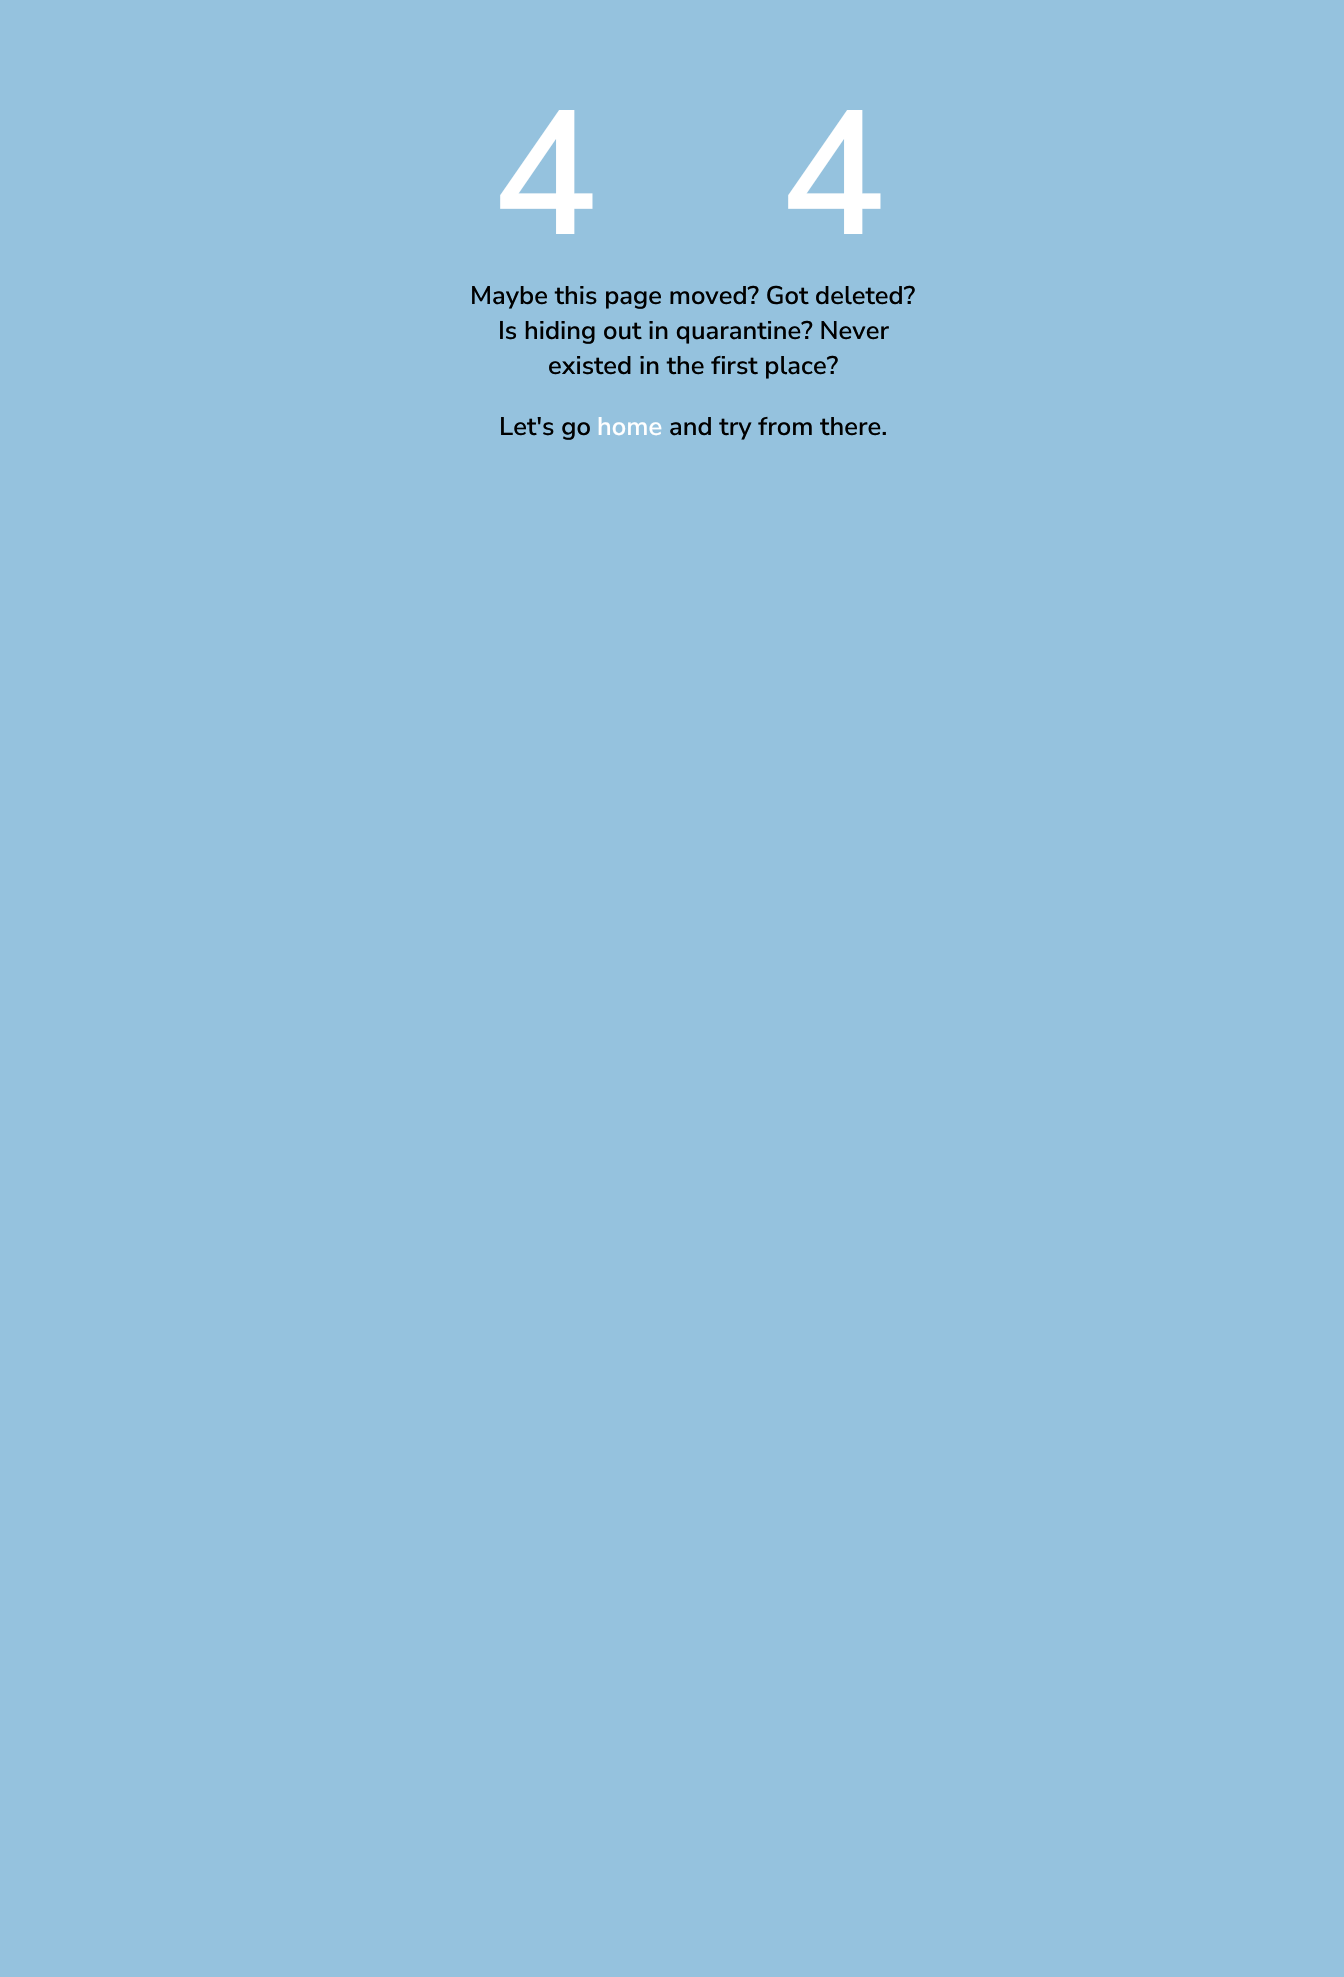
void draw(SkCanvas* canvas) {
    SkPaint paint;
    paint.setAntiAlias(true);
    canvas->clear(0xFF95C2DE);
    SkFont font1(fontMgr->matchFamilyStyle("Nunito Sans", SkFontStyle(600, SkFontStyle::kNormal_Width, SkFontStyle::kUpright_Slant)), 176);
    font1.setSubpixel(true);
    paint.setColor(0xFFFFFFFF);
    canvas->drawString("4", 492, 234, font1, paint);
    canvas->drawString("4", 780, 234, font1, paint);
    SkFont font2(fontMgr->matchFamilyStyle("Nunito Sans", SkFontStyle(600, SkFontStyle::kNormal_Width, SkFontStyle::kUpright_Slant)), 25.6f);
    font2.setSubpixel(true);
    paint.setColor(0xFF000000);
    canvas->drawString("Maybe this page moved? Got deleted?", 470, 304, font2, paint);
    canvas->drawString("Is hiding out in quarantine? Never", 498, 339, font2, paint);
    canvas->drawString("existed in the first place?", 548, 374, font2, paint);
    canvas->drawString("Let's go", 499, 435, font2, paint);
    paint.setColor(0xFFFFFFFF);
    canvas->drawString("home", 597, 435, font2, paint);
    paint.setColor(0xFF000000);
    canvas->drawString("and try from there.", 669, 435, font2, paint);
}
